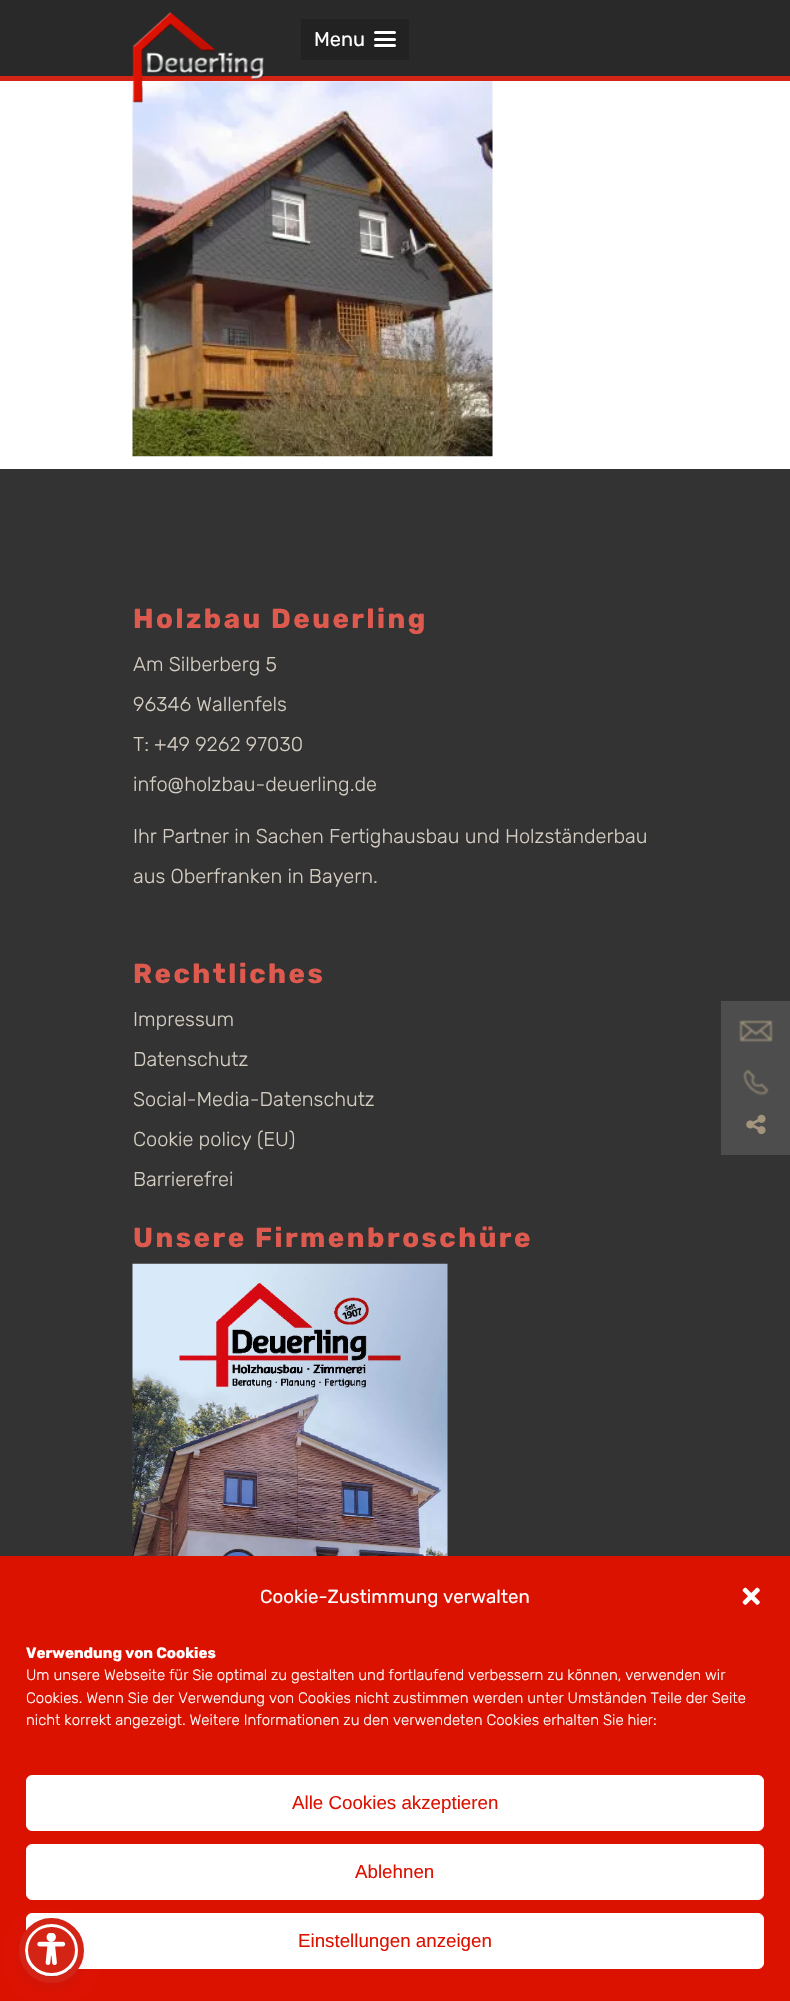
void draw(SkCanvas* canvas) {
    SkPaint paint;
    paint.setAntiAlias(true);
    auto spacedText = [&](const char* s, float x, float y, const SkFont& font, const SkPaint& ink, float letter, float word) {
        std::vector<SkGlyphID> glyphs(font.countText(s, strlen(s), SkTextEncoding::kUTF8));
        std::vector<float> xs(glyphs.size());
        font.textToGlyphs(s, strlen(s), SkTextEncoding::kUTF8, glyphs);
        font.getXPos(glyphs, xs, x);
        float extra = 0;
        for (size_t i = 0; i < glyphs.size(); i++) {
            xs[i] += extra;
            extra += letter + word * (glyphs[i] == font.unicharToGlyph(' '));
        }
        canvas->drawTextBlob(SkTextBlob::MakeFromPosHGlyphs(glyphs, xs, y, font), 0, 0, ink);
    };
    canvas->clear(0xFFFFFFFF);
    paint.setColor(0xFF292929);
    canvas->drawRect(SkRect::MakeXYWH(0, 0, 790, 76), paint);
    paint.setColor(0xFFD32415);
    canvas->drawRect(SkRect::MakeXYWH(0, 76, 790, 5), paint);
    canvas->drawImageRect(SkImages::DeferredFromEncodedData(SkData::MakeFromFileName("img5.png")), SkRect::MakeXYWH(132, 81, 361, 376), SkSamplingOptions());
    canvas->drawImageRect(SkImages::DeferredFromEncodedData(SkData::MakeFromFileName("img1.png")), SkRect::MakeXYWH(132, 12, 132, 91), SkSamplingOptions());
    paint.setColor(0xFF222222);
    canvas->drawRect(SkRect::MakeXYWH(301, 19, 108, 41), paint);
    SkFont font1(fontMgr->matchFamilyStyle("Rubik", SkFontStyle::Normal()), 20);
    font1.setSubpixel(true);
    paint.setColor(0xFFFFFFFF);
    canvas->drawString("Menu", 314, 46, font1, paint);
    paint.setColor(0xFF1A1A1A);
    canvas->drawPath(SkPathBuilder().moveTo(374.5f, 33.5f).lineTo(374, 35).cubicTo(374.5f, 36.5f, 377.5f, 36, 378.5f, 36).lineTo(391.5f, 36).cubicTo(392.5f, 36, 395.5f, 36.5f, 396, 35).lineTo(395.5f, 33.5f).close().detach(), paint);
    paint.setColor(0xFFFFFFFF);
    canvas->drawRoundRect(SkRect::MakeXYWH(374, 31, 22, 3), 1.5f, 1.5f, paint);
    paint.setColor(0xFF1A1A1A);
    canvas->drawPath(SkPathBuilder().moveTo(374, 39.5f).cubicTo(372.5f, 42.5f, 378, 42, 378.5f, 42).lineTo(391.5f, 42).cubicTo(392, 42, 397.5f, 42.5f, 396, 39.5f).cubicTo(395, 40, 375, 40, 374, 39.5f).close().detach(), paint);
    paint.setColor(0xFFFFFFFF);
    canvas->drawRoundRect(SkRect::MakeXYWH(374, 38, 22, 3), 1.5f, 1.5f, paint);
    paint.setColor(0xFF1A1A1A);
    canvas->drawPath(SkPathBuilder().moveTo(374, 46).cubicTo(373, 48.5f, 378, 48, 378.5f, 48).lineTo(391.5f, 48).cubicTo(392, 48, 397, 48.5f, 396, 46).cubicTo(395, 46.5f, 375, 46.5f, 374, 46).close().detach(), paint);
    paint.setColor(0xFFFFFFFF);
    canvas->drawRoundRect(SkRect::MakeXYWH(374, 44, 22, 3), 1.5f, 1.5f, paint);
    paint.setColor(0xFF333333);
    canvas->drawRect(SkRect::MakeXYWH(0, 469, 790, 1087), paint);
    paint.setColor(0xFF4D4D4D);
    canvas->drawRect(SkRect::MakeXYWH(721, 1001, 69, 154), paint);
    canvas->drawImageRect(SkImages::DeferredFromEncodedData(SkData::MakeFromFileName("img2.png")), SkRect::MakeXYWH(739, 1020, 34, 22), SkSamplingOptions());
    canvas->drawImageRect(SkImages::DeferredFromEncodedData(SkData::MakeFromFileName("img3.png")), SkRect::MakeXYWH(743, 1069, 26, 27), SkSamplingOptions());
    canvas->drawImageRect(SkImages::DeferredFromEncodedData(SkData::MakeFromFileName("img4.png")), SkRect::MakeXYWH(746, 1114, 20, 21), SkSamplingOptions());
    SkFont font2(fontMgr->matchFamilyStyle("Rubik", SkFontStyle::Bold()), 27.5f);
    font2.setSubpixel(true);
    paint.setColor(0xFFDE5A4F);
    spacedText("Holzbau Deuerling", 133, 628, font2, paint, 2.5f, 0);
    SkFont font3(fontMgr->matchFamilyStyle("Rubik", SkFontStyle(300, SkFontStyle::kNormal_Width, SkFontStyle::kUpright_Slant)), 20);
    font3.setSubpixel(true);
    paint.setColor(0xFFD4CDC2);
    canvas->drawString("Am Silberberg 5", 133, 671, font3, paint);
    canvas->drawString("96346 Wallenfels", 133, 711, font3, paint);
    canvas->drawString("T: +49 9262 97030", 133, 751, font3, paint);
    canvas->drawString("info@holzbau-deuerling.de", 133, 791, font3, paint);
    canvas->drawString("Ihr Partner in Sachen Fertighausbau und Holzständerbau", 133, 843, font3, paint);
    canvas->drawString("aus Oberfranken in Bayern.", 133, 883, font3, paint);
    paint.setColor(0xFFDE5A4F);
    spacedText("Rechtliches", 133, 983, font2, paint, 2.5f, 0);
    paint.setColor(0xFFD4CDC2);
    canvas->drawString("Impressum", 133, 1026, font3, paint);
    canvas->drawString("Datenschutz", 133, 1066, font3, paint);
    canvas->drawString("Social-Media-Datenschutz", 133, 1106, font3, paint);
    canvas->drawString("Cookie policy (EU)", 133, 1146, font3, paint);
    canvas->drawString("Barrierefrei", 133, 1186, font3, paint);
    paint.setColor(0xFFDE5A4F);
    spacedText("Unsere Firmenbroschüre", 133, 1247, font2, paint, 2.5f, 0);
    canvas->drawImageRect(SkImages::DeferredFromEncodedData(SkData::MakeFromFileName("img6.png")), SkRect::MakeXYWH(132, 1263, 316, 293), SkSamplingOptions());
    paint.setColor(0xFFDC1201);
    canvas->drawRect(SkRect::MakeXYWH(0, 1556, 790, 445), paint);
    SkFont font4(fontMgr->matchFamilyStyle("Rubik", SkFontStyle::Normal()), 18.75f);
    font4.setSubpixel(true);
    paint.setColor(0xFFFFFFFF);
    canvas->drawString("Cookie-Zustimmung verwalten", 260, 1603, font4, paint);
    canvas->drawImageRect(SkImages::DeferredFromEncodedData(SkData::MakeFromFileName("img7.png")), SkRect::MakeXYWH(742, 1587, 18, 18), SkSamplingOptions());
    SkFont font5(fontMgr->matchFamilyStyle("Rubik", SkFontStyle::Bold()), 15);
    font5.setSubpixel(true);
    canvas->drawString("Verwendung von Cookies", 26, 1658, font5, paint);
    SkFont font6(fontMgr->matchFamilyStyle("Rubik", SkFontStyle(300, SkFontStyle::kNormal_Width, SkFontStyle::kUpright_Slant)), 15);
    font6.setSubpixel(true);
    canvas->drawString("Um unsere Webseite für Sie optimal zu gestalten und fortlaufend verbessern zu können, verwenden wir", 26, 1680, font6, paint);
    canvas->drawString("Cookies. Wenn Sie der Verwendung von Cookies nicht zustimmen werden unter Umständen Teile der Seite", 26, 1703, font6, paint);
    canvas->drawString("nicht korrekt angezeigt. Weitere Informationen zu den verwendeten Cookies erhalten Sie hier:", 26, 1725, font6, paint);
    canvas->drawRoundRect(SkRect::MakeXYWH(26.5f, 1775.5f, 737, 55), 5.5f, 5.5f, paint);
    paint.setStyle(SkPaint::kStroke_Style);
    paint.setStrokeWidth(1);
    canvas->drawRoundRect(SkRect::MakeXYWH(26.5f, 1775.5f, 737, 55), 5.5f, 5.5f, paint);
    SkFont font7(fontMgr->matchFamilyStyle("Liberation Sans", SkFontStyle::Normal()), 18.75f);
    font7.setSubpixel(true);
    paint.setStyle(SkPaint::kFill_Style);
    paint.setColor(0xFFDC1201);
    canvas->drawString("Alle Cookies akzeptieren", 292, 1809, font7, paint);
    paint.setColor(0xFFFFFFFF);
    canvas->drawRoundRect(SkRect::MakeXYWH(26.5f, 1844.5f, 737, 55), 5.5f, 5.5f, paint);
    paint.setStyle(SkPaint::kStroke_Style);
    canvas->drawRoundRect(SkRect::MakeXYWH(26.5f, 1844.5f, 737, 55), 5.5f, 5.5f, paint);
    paint.setStyle(SkPaint::kFill_Style);
    paint.setColor(0xFFDC1201);
    canvas->drawString("Ablehnen", 355, 1878, font7, paint);
    paint.setColor(0xFFFFFFFF);
    canvas->drawRoundRect(SkRect::MakeXYWH(26.5f, 1913.5f, 737, 55), 5.5f, 5.5f, paint);
    paint.setStyle(SkPaint::kStroke_Style);
    canvas->drawRoundRect(SkRect::MakeXYWH(26.5f, 1913.5f, 737, 55), 5.5f, 5.5f, paint);
    paint.setStyle(SkPaint::kFill_Style);
    paint.setColor(0xFFDC1201);
    canvas->drawString("Einstellungen anzeigen", 298, 1947, font7, paint);
    paint.setColor(0x335D6494);
    paint.setMaskFilter(SkMaskFilter::MakeBlur(kNormal_SkBlurStyle, 2.5f));
    canvas->drawRoundRect(SkRect::MakeXYWH(25, 1926, 53, 53), 26.5f, 26.5f, paint);
    paint.setMaskFilter(nullptr);
    paint.setColor(0x26252C61);
    paint.setMaskFilter(SkMaskFilter::MakeBlur(kNormal_SkBlurStyle, 9.5f));
    canvas->drawRoundRect(SkRect::MakeXYWH(25, 1930, 53, 53), 26.5f, 26.5f, paint);
    paint.setMaskFilter(nullptr);
    paint.setColor(0xFFD32415);
    canvas->drawRoundRect(SkRect::MakeXYWH(26.5f, 1925.5f, 50, 49), 24.5f, 24.5f, paint);
    paint.setStyle(SkPaint::kStroke_Style);
    paint.setStrokeWidth(3);
    paint.setColor(0xFFFFFFFF);
    canvas->drawRoundRect(SkRect::MakeXYWH(26.5f, 1925.5f, 50, 49), 24.5f, 24.5f, paint);
    paint.setStrokeWidth(6);
    paint.setColor(0xFFD32415);
    canvas->drawCircle(51.5f, 1950.5f, 29.5f, paint);
    canvas->drawImageRect(SkImages::DeferredFromEncodedData(SkData::MakeFromFileName("img8.png")), SkRect::MakeXYWH(37, 1933, 29, 32), SkSamplingOptions());
}
